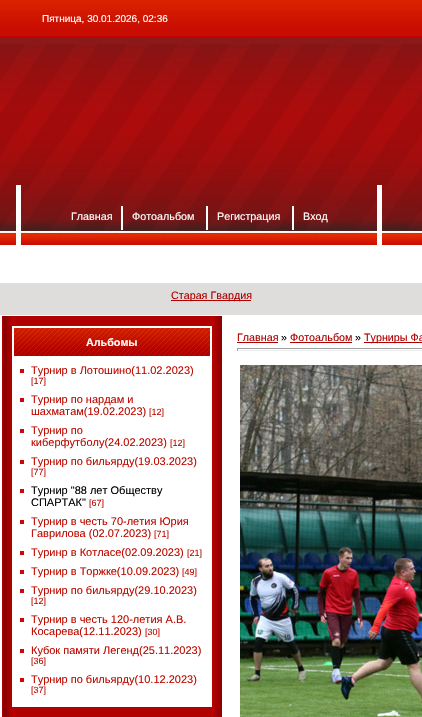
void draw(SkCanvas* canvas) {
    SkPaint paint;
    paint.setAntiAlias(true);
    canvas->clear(0xFFFFFFFF);
    canvas->drawImageRect(SkImages::DeferredFromEncodedData(SkData::MakeFromFileName("img1.png")), SkRect::MakeXYWH(0, 0, 422, 247), SkSamplingOptions());
    SkFont font1(fontMgr->matchFamilyStyle("Liberation Sans", SkFontStyle::Normal()), 10);
    font1.setSubpixel(true);
    paint.setColor(0xFFFFFFFF);
    canvas->drawString("Пятница, 30.01.2026, 02:36", 42, 22, font1, paint);
    canvas->drawRect(SkRect::MakeXYWH(377, 185, 5, 62), paint);
    canvas->drawRect(SkRect::MakeXYWH(16, 185, 5, 62), paint);
    SkFont font2(fontMgr->matchFamilyStyle("Liberation Sans", SkFontStyle::Normal()), 10.75f);
    font2.setSubpixel(true);
    canvas->drawString("Главная", 71, 220, font2, paint);
    canvas->drawRect(SkRect::MakeXYWH(121, 206, 2, 24), paint);
    canvas->drawString("Фотоальбом", 132, 220, font2, paint);
    canvas->drawRect(SkRect::MakeXYWH(206, 206, 2, 24), paint);
    canvas->drawString("Регистрация", 217, 220, font2, paint);
    canvas->drawRect(SkRect::MakeXYWH(292, 206, 2, 24), paint);
    canvas->drawString("Вход", 303, 220, font2, paint);
    paint.setColor(0xFFDFDCDC);
    canvas->drawRect(SkRect::MakeXYWH(0, 283, 422, 32), paint);
    paint.setColor(0xFFB00000);
    canvas->drawRect(SkRect::MakeXYWH(171, 300, 80, 1), paint);
    canvas->drawString("Старая Гвардия", 171, 299, font2, paint);
    canvas->drawImageRect(SkImages::DeferredFromEncodedData(SkData::MakeFromFileName("img2.png")), SkRect::MakeXYWH(2, 316, 220, 401), SkSamplingOptions());
    canvas->drawImageRect(SkImages::DeferredFromEncodedData(SkData::MakeFromFileName("img3.png")), SkRect::MakeXYWH(12, 326, 200, 32), SkSamplingOptions());
    SkFont font3(fontMgr->matchFamilyStyle("Liberation Sans", SkFontStyle::Bold()), 10.75f);
    font3.setSubpixel(true);
    paint.setColor(0xFFFFFFFF);
    canvas->drawString("Альбомы", 86, 346, font3, paint);
    canvas->drawRect(SkRect::MakeXYWH(12, 358, 200, 349), paint);
    paint.setColor(0xFFCE0606);
    canvas->drawRect(SkRect::MakeXYWH(20, 369, 4, 4), paint);
    SkFont font4(fontMgr->matchFamilyStyle("Liberation Sans", SkFontStyle::Normal()), 11);
    font4.setSubpixel(true);
    paint.setColor(0xFFBD0A00);
    canvas->drawString("Турнир в Лотошино(11.02.2023)", 31, 374, font4, paint);
    SkFont font5(fontMgr->matchFamilyStyle("Liberation Sans", SkFontStyle::Normal()), 9);
    font5.setSubpixel(true);
    canvas->drawString("[17]", 31, 384, font5, paint);
    paint.setColor(0xFFCE0606);
    canvas->drawRect(SkRect::MakeXYWH(20, 398, 4, 4), paint);
    paint.setColor(0xFFBD0A00);
    canvas->drawString("Турнир по нардам и", 31, 403, font4, paint);
    canvas->drawString("шахматам(19.02.2023)", 31, 415, font4, paint);
    canvas->drawString("[12]", 149, 415, font5, paint);
    paint.setColor(0xFFCE0606);
    canvas->drawRect(SkRect::MakeXYWH(20, 429, 4, 4), paint);
    paint.setColor(0xFFBD0A00);
    canvas->drawString("Турнир по", 31, 434, font4, paint);
    canvas->drawString("киберфутболу(24.02.2023)", 31, 446, font4, paint);
    canvas->drawString("[12]", 170, 446, font5, paint);
    paint.setColor(0xFFCE0606);
    canvas->drawRect(SkRect::MakeXYWH(20, 460, 4, 4), paint);
    paint.setColor(0xFFBD0A00);
    canvas->drawString("Турнир по бильярду(19.03.2023)", 31, 465, font4, paint);
    canvas->drawString("[77]", 31, 475, font5, paint);
    paint.setColor(0xFFCE0606);
    canvas->drawRect(SkRect::MakeXYWH(20, 489, 4, 4), paint);
    paint.setColor(0xFF000000);
    canvas->drawString("Турнир \"88 лет Обществу", 31, 494, font4, paint);
    canvas->drawString("СПАРТАК\"", 31, 506, font4, paint);
    paint.setColor(0xFFBD0A00);
    canvas->drawString("[67]", 89, 506, font5, paint);
    paint.setColor(0xFFCE0606);
    canvas->drawRect(SkRect::MakeXYWH(20, 520, 4, 4), paint);
    paint.setColor(0xFFBD0A00);
    canvas->drawString("Турнир в честь 70-летия Юрия", 31, 525, font4, paint);
    canvas->drawString("Гаврилова (02.07.2023)", 31, 537, font4, paint);
    canvas->drawString("[71]", 154, 537, font5, paint);
    paint.setColor(0xFFCE0606);
    canvas->drawRect(SkRect::MakeXYWH(20, 551, 4, 4), paint);
    paint.setColor(0xFFBD0A00);
    canvas->drawString("Туринр в Котласе(02.09.2023)", 31, 556, font4, paint);
    canvas->drawString("[21]", 187, 556, font5, paint);
    paint.setColor(0xFFCE0606);
    canvas->drawRect(SkRect::MakeXYWH(20, 570, 4, 4), paint);
    paint.setColor(0xFFBD0A00);
    canvas->drawString("Турнир в Торжке(10.09.2023)", 31, 575, font4, paint);
    canvas->drawString("[49]", 182, 575, font5, paint);
    paint.setColor(0xFFCE0606);
    canvas->drawRect(SkRect::MakeXYWH(20, 589, 4, 4), paint);
    paint.setColor(0xFFBD0A00);
    canvas->drawString("Турнир по бильярду(29.10.2023)", 31, 594, font4, paint);
    canvas->drawString("[12]", 31, 604, font5, paint);
    paint.setColor(0xFFCE0606);
    canvas->drawRect(SkRect::MakeXYWH(20, 618, 4, 4), paint);
    paint.setColor(0xFFBD0A00);
    canvas->drawString("Турнир в честь 120-летия А.В.", 31, 623, font4, paint);
    canvas->drawString("Косарева(12.11.2023)", 31, 635, font4, paint);
    canvas->drawString("[30]", 145, 635, font5, paint);
    paint.setColor(0xFFCE0606);
    canvas->drawRect(SkRect::MakeXYWH(20, 649, 4, 4), paint);
    paint.setColor(0xFFBD0A00);
    canvas->drawString("Кубок памяти Легенд(25.11.2023)", 31, 654, font4, paint);
    canvas->drawString("[36]", 31, 664, font5, paint);
    paint.setColor(0xFFCE0606);
    canvas->drawRect(SkRect::MakeXYWH(20, 678, 4, 4), paint);
    paint.setColor(0xFFBD0A00);
    canvas->drawString("Турнир по бильярду(10.12.2023)", 31, 683, font4, paint);
    canvas->drawString("[37]", 31, 693, font5, paint);
    paint.setColor(0xFFB00000);
    canvas->drawString("Главная", 237, 341, font2, paint);
    canvas->drawRect(SkRect::MakeXYWH(237, 342, 41, 1), paint);
    paint.setColor(0xFF000000);
    canvas->drawString("»", 281, 341, font2, paint);
    paint.setColor(0xFFB00000);
    canvas->drawString("Фотоальбом", 290, 341, font2, paint);
    canvas->drawRect(SkRect::MakeXYWH(290, 342, 62, 1), paint);
    paint.setColor(0xFF000000);
    canvas->drawString("»", 355, 341, font2, paint);
    paint.setColor(0xFFB00000);
    canvas->drawRect(SkRect::MakeXYWH(364, 342, 58, 1), paint);
    canvas->drawString("Турниры Фа", 364, 341, font2, paint);
    paint.setColor(0xFF9F9F9F);
    canvas->drawRect(SkRect::MakeXYWH(237, 348, 185, 1), paint);
    paint.setColor(0xFFEEEEEE);
    canvas->drawRect(SkRect::MakeXYWH(237, 350, 185, 1), paint);
    paint.setColor(0xFF9F9F9F);
    canvas->drawRect(SkRect::MakeXYWH(237, 348, 1, 3), paint);
    canvas->drawImageRect(SkImages::DeferredFromEncodedData(SkData::MakeFromFileName("img4.png")), SkRect::MakeXYWH(240, 365, 182, 352), SkSamplingOptions());
}
